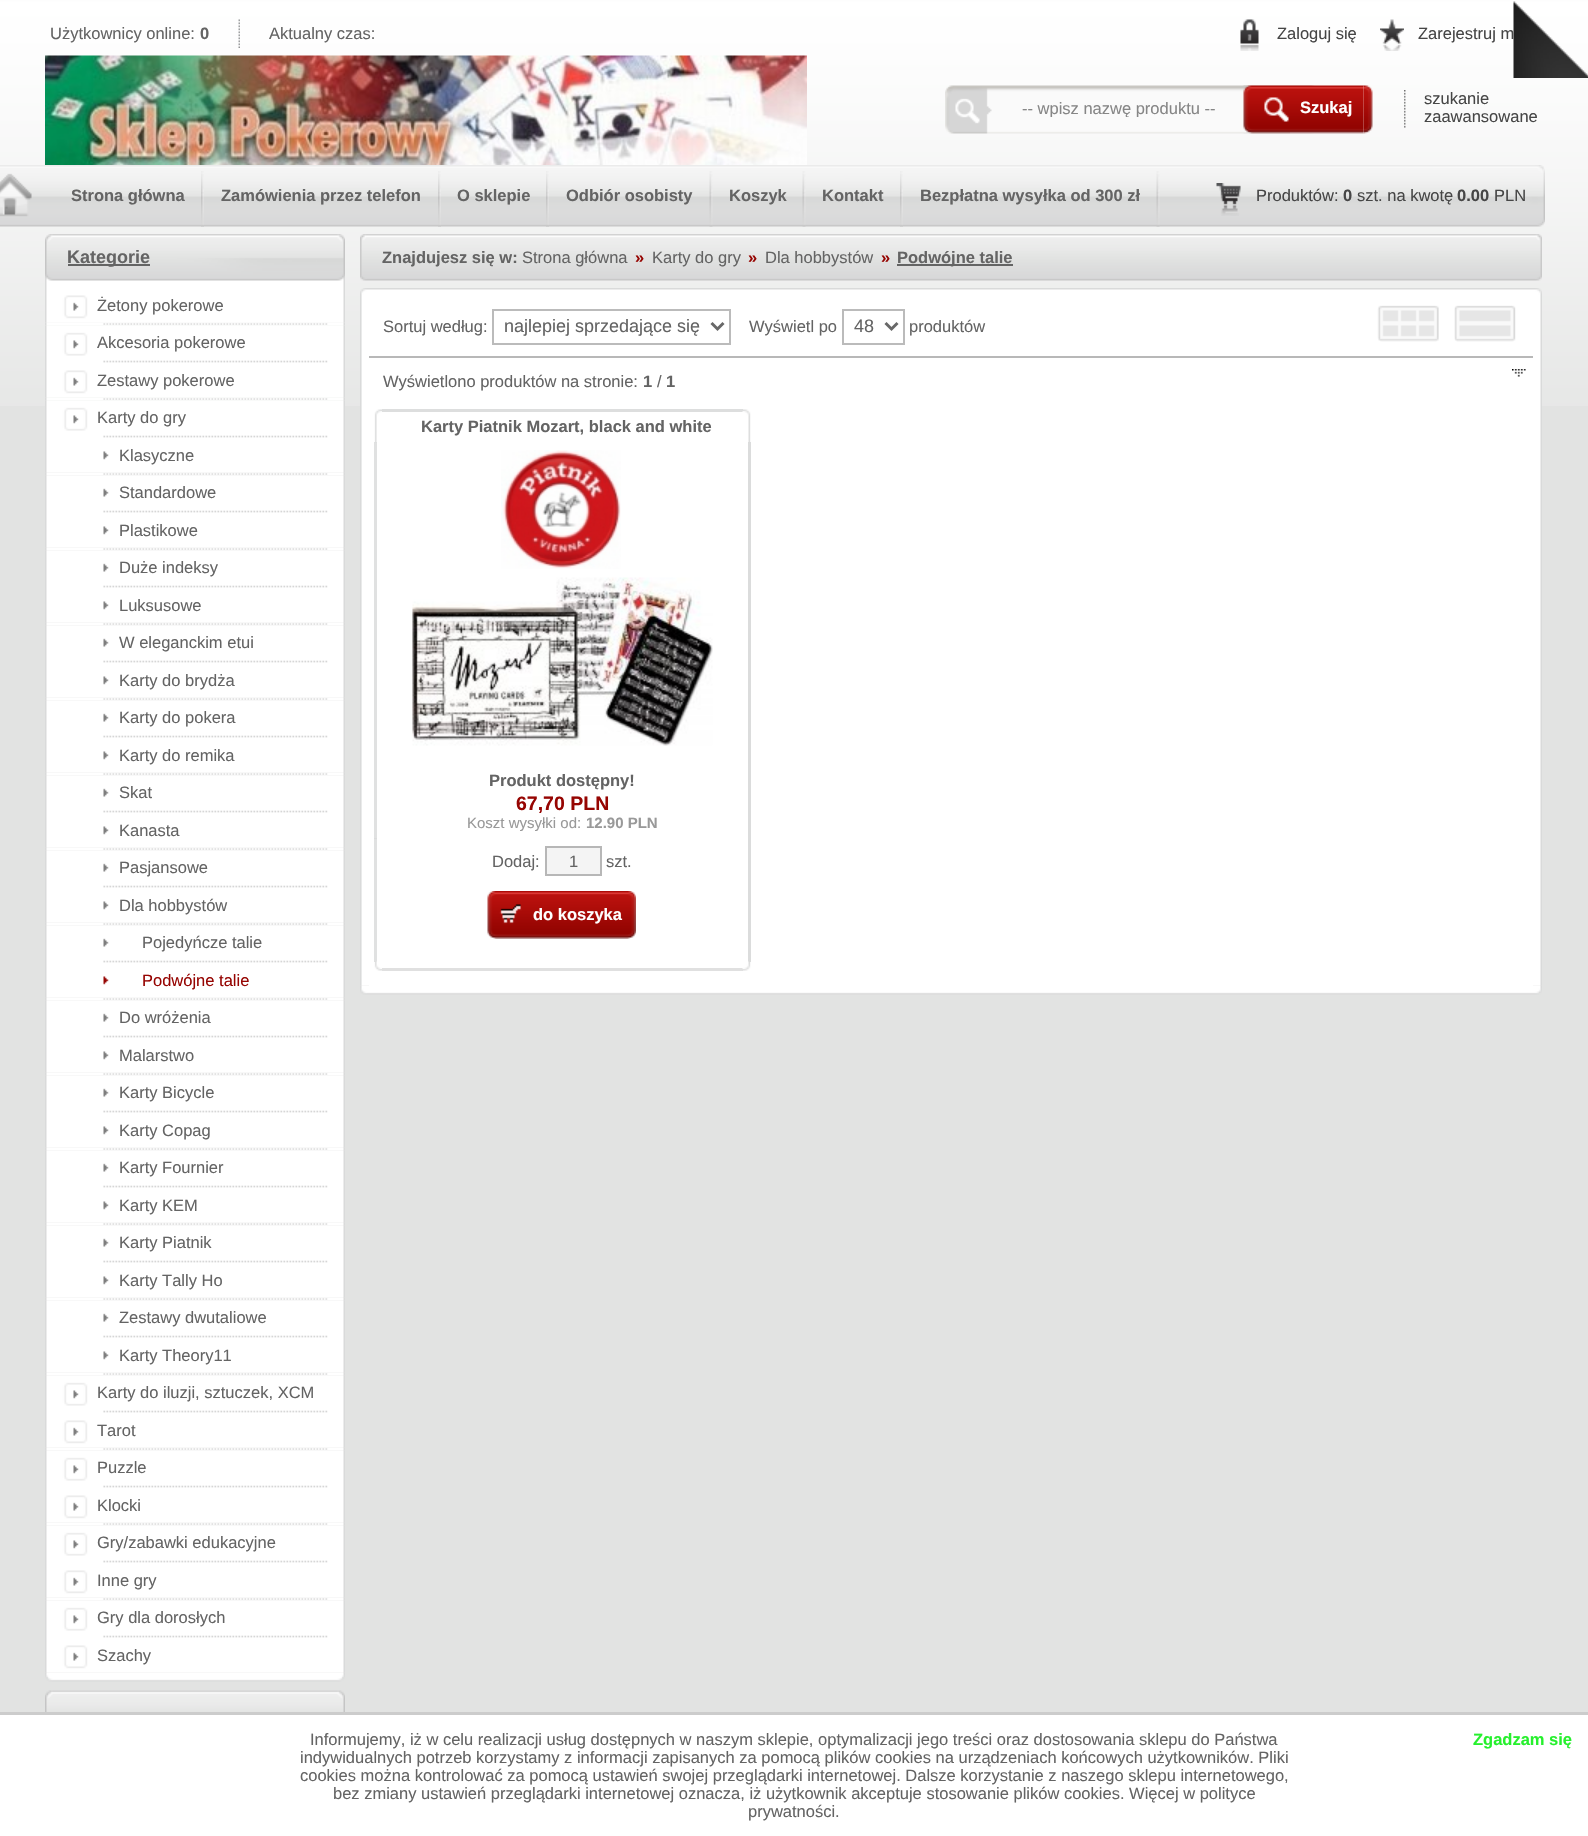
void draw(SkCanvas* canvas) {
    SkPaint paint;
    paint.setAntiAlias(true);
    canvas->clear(0xFFE2E3E2);
    canvas->drawImageRect(SkImages::DeferredFromEncodedData(SkData::MakeFromFileName("img1.png")), SkRect::MakeXYWH(0, 0, 1588, 406), SkSamplingOptions());
    SkFont font1(fontMgr->matchFamilyStyle("Liberation Sans", SkFontStyle::Normal()), 16.5f);
    font1.setSubpixel(true);
    paint.setColor(0xFF646464);
    canvas->drawString("Użytkownicy online:", 50, 39, font1, paint);
    SkFont font2(fontMgr->matchFamilyStyle("Liberation Sans", SkFontStyle::Bold()), 16.5f);
    font2.setSubpixel(true);
    canvas->drawString("0", 200, 39, font2, paint);
    canvas->drawImageRect(SkImages::DeferredFromEncodedData(SkData::MakeFromFileName("img2.png")), SkRect::MakeXYWH(238, 19, 2, 29), SkSamplingOptions());
    canvas->drawString("Aktualny czas:", 269, 39, font1, paint);
    canvas->drawImageRect(SkImages::DeferredFromEncodedData(SkData::MakeFromFileName("img3.png")), SkRect::MakeXYWH(1240, 19, 19, 32), SkSamplingOptions());
    paint.setColor(0xFF464646);
    canvas->drawString("Zaloguj się", 1277, 39, font1, paint);
    canvas->drawImageRect(SkImages::DeferredFromEncodedData(SkData::MakeFromFileName("img4.png")), SkRect::MakeXYWH(1380, 19, 24, 32), SkSamplingOptions());
    canvas->drawString("Zarejestruj m", 1418, 39, font1, paint);
    canvas->drawImageRect(SkImages::DeferredFromEncodedData(SkData::MakeFromFileName("img5.png")), SkRect::MakeXYWH(45, 55, 762, 110), SkSamplingOptions());
    canvas->drawImageRect(SkImages::DeferredFromEncodedData(SkData::MakeFromFileName("img6.png")), SkRect::MakeXYWH(945, 85, 370, 49), SkSamplingOptions());
    canvas->save();
    canvas->clipRect(SkRect::MakeXYWH(999, 99, 242, 18));
    paint.setColor(0xFF868686);
    canvas->drawString("-- wpisz nazwę produktu --", 1022, 114, font1, paint);
    canvas->restore();
    canvas->drawImageRect(SkImages::DeferredFromEncodedData(SkData::MakeFromFileName("img7.png")), SkRect::MakeXYWH(1243, 85, 47, 49), SkSamplingOptions());
    canvas->drawImageRect(SkImages::DeferredFromEncodedData(SkData::MakeFromFileName("img8.png")), SkRect::MakeXYWH(1290, 85, 74, 49), SkSamplingOptions());
    paint.setColor(0xFFFFFFFF);
    canvas->drawString("Szukaj", 1300, 113, font2, paint);
    canvas->drawImageRect(SkImages::DeferredFromEncodedData(SkData::MakeFromFileName("img9.png")), SkRect::MakeXYWH(1363, 85, 10, 49), SkSamplingOptions());
    canvas->drawImageRect(SkImages::DeferredFromEncodedData(SkData::MakeFromFileName("img10.png")), SkRect::MakeXYWH(1404, 90, 2, 38), SkSamplingOptions());
    paint.setColor(0xFF464646);
    canvas->drawString("szukanie", 1424, 104, font1, paint);
    canvas->drawString("zaawansowane", 1424, 122, font1, paint);
    canvas->drawImageRect(SkImages::DeferredFromEncodedData(SkData::MakeFromFileName("img11.png")), SkRect::MakeXYWH(45, 165, 1500, 62), SkSamplingOptions());
    canvas->drawImageRect(SkImages::DeferredFromEncodedData(SkData::MakeFromFileName("img12.png")), SkRect::MakeXYWH(0, 165, 45, 62), SkSamplingOptions());
    paint.setColor(0xFF646464);
    canvas->drawString("Strona główna", 71, 201, font2, paint);
    canvas->drawImageRect(SkImages::DeferredFromEncodedData(SkData::MakeFromFileName("img13.png")), SkRect::MakeXYWH(201, 171, 3, 56), SkSamplingOptions());
    canvas->drawString("Zamówienia przez telefon", 221, 201, font2, paint);
    canvas->drawImageRect(SkImages::DeferredFromEncodedData(SkData::MakeFromFileName("img14.png")), SkRect::MakeXYWH(438, 171, 3, 56), SkSamplingOptions());
    canvas->drawString("O sklepie", 457, 201, font2, paint);
    canvas->drawImageRect(SkImages::DeferredFromEncodedData(SkData::MakeFromFileName("img13.png")), SkRect::MakeXYWH(546, 171, 3, 56), SkSamplingOptions());
    canvas->drawString("Odbiór osobisty", 566, 201, font2, paint);
    canvas->drawImageRect(SkImages::DeferredFromEncodedData(SkData::MakeFromFileName("img15.png")), SkRect::MakeXYWH(709, 171, 4, 56), SkSamplingOptions());
    canvas->drawString("Koszyk", 729, 201, font2, paint);
    canvas->drawImageRect(SkImages::DeferredFromEncodedData(SkData::MakeFromFileName("img15.png")), SkRect::MakeXYWH(802, 171, 4, 56), SkSamplingOptions());
    canvas->drawString("Kontakt", 822, 201, font2, paint);
    canvas->drawImageRect(SkImages::DeferredFromEncodedData(SkData::MakeFromFileName("img13.png")), SkRect::MakeXYWH(900, 171, 3, 56), SkSamplingOptions());
    canvas->drawString("Bezpłatna wysyłka od 300 zł", 920, 201, font2, paint);
    canvas->drawImageRect(SkImages::DeferredFromEncodedData(SkData::MakeFromFileName("img15.png")), SkRect::MakeXYWH(1156, 171, 4, 56), SkSamplingOptions());
    canvas->drawImageRect(SkImages::DeferredFromEncodedData(SkData::MakeFromFileName("img16.png")), SkRect::MakeXYWH(1216, 183, 25, 33), SkSamplingOptions());
    paint.setColor(0xFF464646);
    canvas->drawString("Produktów:", 1256, 201, font1, paint);
    canvas->drawString("0", 1343, 201, font2, paint);
    canvas->drawString("szt. na kwotę", 1357, 201, font1, paint);
    canvas->drawString("0.00", 1457, 201, font2, paint);
    canvas->drawString("PLN", 1494, 201, font1, paint);
    canvas->drawImageRect(SkImages::DeferredFromEncodedData(SkData::MakeFromFileName("img17.png")), SkRect::MakeXYWH(45, 234, 300, 61), SkSamplingOptions());
    paint.setColor(0xFF646464);
    canvas->drawRect(SkRect::MakeXYWH(68, 264, 82, 2), paint);
    SkFont font3(fontMgr->matchFamilyStyle("Liberation Sans", SkFontStyle::Bold()), 18);
    font3.setSubpixel(true);
    canvas->drawString("Kategorie", 67, 263, font3, paint);
    canvas->drawImageRect(SkImages::DeferredFromEncodedData(SkData::MakeFromFileName("img18.png")), SkRect::MakeXYWH(45, 295, 300, 28), SkSamplingOptions());
    canvas->drawString("Żetony pokerowe", 97, 311, font1, paint);
    canvas->drawImageRect(SkImages::DeferredFromEncodedData(SkData::MakeFromFileName("img19.png")), SkRect::MakeXYWH(45, 322, 300, 4), SkSamplingOptions());
    canvas->drawImageRect(SkImages::DeferredFromEncodedData(SkData::MakeFromFileName("img20.png")), SkRect::MakeXYWH(45, 325, 300, 35), SkSamplingOptions());
    canvas->drawString("Akcesoria pokerowe", 97, 348, font1, paint);
    canvas->drawImageRect(SkImages::DeferredFromEncodedData(SkData::MakeFromFileName("img21.png")), SkRect::MakeXYWH(45, 360, 300, 3), SkSamplingOptions());
    canvas->drawImageRect(SkImages::DeferredFromEncodedData(SkData::MakeFromFileName("img22.png")), SkRect::MakeXYWH(45, 363, 300, 35), SkSamplingOptions());
    canvas->drawString("Zestawy pokerowe", 97, 386, font1, paint);
    canvas->drawImageRect(SkImages::DeferredFromEncodedData(SkData::MakeFromFileName("img23.png")), SkRect::MakeXYWH(45, 397, 300, 4), SkSamplingOptions());
    canvas->drawImageRect(SkImages::DeferredFromEncodedData(SkData::MakeFromFileName("img24.png")), SkRect::MakeXYWH(45, 400, 300, 35), SkSamplingOptions());
    canvas->drawString("Karty do gry", 97, 423, font1, paint);
    canvas->drawImageRect(SkImages::DeferredFromEncodedData(SkData::MakeFromFileName("img21.png")), SkRect::MakeXYWH(45, 435, 300, 3), SkSamplingOptions());
    canvas->drawImageRect(SkImages::DeferredFromEncodedData(SkData::MakeFromFileName("img25.png")), SkRect::MakeXYWH(45, 438, 300, 35), SkSamplingOptions());
    canvas->drawString("Klasyczne", 119, 461, font1, paint);
    canvas->drawImageRect(SkImages::DeferredFromEncodedData(SkData::MakeFromFileName("img26.png")), SkRect::MakeXYWH(45, 472, 300, 4), SkSamplingOptions());
    canvas->drawImageRect(SkImages::DeferredFromEncodedData(SkData::MakeFromFileName("img27.png")), SkRect::MakeXYWH(45, 475, 300, 35), SkSamplingOptions());
    canvas->drawString("Standardowe", 119, 498, font1, paint);
    canvas->drawImageRect(SkImages::DeferredFromEncodedData(SkData::MakeFromFileName("img21.png")), SkRect::MakeXYWH(45, 510, 300, 3), SkSamplingOptions());
    canvas->drawImageRect(SkImages::DeferredFromEncodedData(SkData::MakeFromFileName("img25.png")), SkRect::MakeXYWH(45, 513, 300, 35), SkSamplingOptions());
    canvas->drawString("Plastikowe", 119, 536, font1, paint);
    canvas->drawImageRect(SkImages::DeferredFromEncodedData(SkData::MakeFromFileName("img26.png")), SkRect::MakeXYWH(45, 547, 300, 4), SkSamplingOptions());
    canvas->drawImageRect(SkImages::DeferredFromEncodedData(SkData::MakeFromFileName("img27.png")), SkRect::MakeXYWH(45, 550, 300, 35), SkSamplingOptions());
    canvas->drawString("Duże indeksy", 119, 573, font1, paint);
    canvas->drawImageRect(SkImages::DeferredFromEncodedData(SkData::MakeFromFileName("img21.png")), SkRect::MakeXYWH(45, 585, 300, 3), SkSamplingOptions());
    canvas->drawImageRect(SkImages::DeferredFromEncodedData(SkData::MakeFromFileName("img25.png")), SkRect::MakeXYWH(45, 588, 300, 35), SkSamplingOptions());
    canvas->drawString("Luksusowe", 119, 611, font1, paint);
    canvas->drawImageRect(SkImages::DeferredFromEncodedData(SkData::MakeFromFileName("img26.png")), SkRect::MakeXYWH(45, 622, 300, 4), SkSamplingOptions());
    canvas->drawImageRect(SkImages::DeferredFromEncodedData(SkData::MakeFromFileName("img27.png")), SkRect::MakeXYWH(45, 625, 300, 35), SkSamplingOptions());
    canvas->drawString("W eleganckim etui", 119, 648, font1, paint);
    canvas->drawImageRect(SkImages::DeferredFromEncodedData(SkData::MakeFromFileName("img21.png")), SkRect::MakeXYWH(45, 660, 300, 3), SkSamplingOptions());
    canvas->drawImageRect(SkImages::DeferredFromEncodedData(SkData::MakeFromFileName("img25.png")), SkRect::MakeXYWH(45, 663, 300, 35), SkSamplingOptions());
    canvas->drawString("Karty do brydża", 119, 686, font1, paint);
    canvas->drawImageRect(SkImages::DeferredFromEncodedData(SkData::MakeFromFileName("img26.png")), SkRect::MakeXYWH(45, 697, 300, 4), SkSamplingOptions());
    canvas->drawImageRect(SkImages::DeferredFromEncodedData(SkData::MakeFromFileName("img27.png")), SkRect::MakeXYWH(45, 700, 300, 35), SkSamplingOptions());
    canvas->drawString("Karty do pokera", 119, 723, font1, paint);
    canvas->drawImageRect(SkImages::DeferredFromEncodedData(SkData::MakeFromFileName("img21.png")), SkRect::MakeXYWH(45, 735, 300, 3), SkSamplingOptions());
    canvas->drawImageRect(SkImages::DeferredFromEncodedData(SkData::MakeFromFileName("img25.png")), SkRect::MakeXYWH(45, 738, 300, 35), SkSamplingOptions());
    canvas->drawString("Karty do remika", 119, 761, font1, paint);
    canvas->drawImageRect(SkImages::DeferredFromEncodedData(SkData::MakeFromFileName("img26.png")), SkRect::MakeXYWH(45, 772, 300, 4), SkSamplingOptions());
    canvas->drawImageRect(SkImages::DeferredFromEncodedData(SkData::MakeFromFileName("img27.png")), SkRect::MakeXYWH(45, 775, 300, 35), SkSamplingOptions());
    canvas->drawString("Skat", 119, 798, font1, paint);
    canvas->drawImageRect(SkImages::DeferredFromEncodedData(SkData::MakeFromFileName("img21.png")), SkRect::MakeXYWH(45, 810, 300, 3), SkSamplingOptions());
    canvas->drawImageRect(SkImages::DeferredFromEncodedData(SkData::MakeFromFileName("img25.png")), SkRect::MakeXYWH(45, 813, 300, 35), SkSamplingOptions());
    canvas->drawString("Kanasta", 119, 836, font1, paint);
    canvas->drawImageRect(SkImages::DeferredFromEncodedData(SkData::MakeFromFileName("img26.png")), SkRect::MakeXYWH(45, 847, 300, 4), SkSamplingOptions());
    canvas->drawImageRect(SkImages::DeferredFromEncodedData(SkData::MakeFromFileName("img27.png")), SkRect::MakeXYWH(45, 850, 300, 35), SkSamplingOptions());
    canvas->drawString("Pasjansowe", 119, 873, font1, paint);
    canvas->drawImageRect(SkImages::DeferredFromEncodedData(SkData::MakeFromFileName("img21.png")), SkRect::MakeXYWH(45, 885, 300, 3), SkSamplingOptions());
    canvas->drawImageRect(SkImages::DeferredFromEncodedData(SkData::MakeFromFileName("img25.png")), SkRect::MakeXYWH(45, 888, 300, 35), SkSamplingOptions());
    canvas->drawString("Dla hobbystów", 119, 911, font1, paint);
    canvas->drawImageRect(SkImages::DeferredFromEncodedData(SkData::MakeFromFileName("img26.png")), SkRect::MakeXYWH(45, 922, 300, 4), SkSamplingOptions());
    canvas->drawImageRect(SkImages::DeferredFromEncodedData(SkData::MakeFromFileName("img27.png")), SkRect::MakeXYWH(45, 925, 300, 35), SkSamplingOptions());
    canvas->drawString("Pojedyńcze talie", 142, 948, font1, paint);
    canvas->drawImageRect(SkImages::DeferredFromEncodedData(SkData::MakeFromFileName("img21.png")), SkRect::MakeXYWH(45, 960, 300, 3), SkSamplingOptions());
    canvas->drawImageRect(SkImages::DeferredFromEncodedData(SkData::MakeFromFileName("img28.png")), SkRect::MakeXYWH(45, 963, 300, 35), SkSamplingOptions());
    paint.setColor(0xFF960502);
    canvas->drawString("Podwójne talie", 142, 986, font1, paint);
    canvas->drawImageRect(SkImages::DeferredFromEncodedData(SkData::MakeFromFileName("img26.png")), SkRect::MakeXYWH(45, 997, 300, 4), SkSamplingOptions());
    canvas->drawImageRect(SkImages::DeferredFromEncodedData(SkData::MakeFromFileName("img27.png")), SkRect::MakeXYWH(45, 1000, 300, 35), SkSamplingOptions());
    paint.setColor(0xFF646464);
    canvas->drawString("Do wróżenia", 119, 1023, font1, paint);
    canvas->drawImageRect(SkImages::DeferredFromEncodedData(SkData::MakeFromFileName("img21.png")), SkRect::MakeXYWH(45, 1035, 300, 3), SkSamplingOptions());
    canvas->drawImageRect(SkImages::DeferredFromEncodedData(SkData::MakeFromFileName("img25.png")), SkRect::MakeXYWH(45, 1038, 300, 35), SkSamplingOptions());
    canvas->drawString("Malarstwo", 119, 1061, font1, paint);
    canvas->drawImageRect(SkImages::DeferredFromEncodedData(SkData::MakeFromFileName("img26.png")), SkRect::MakeXYWH(45, 1072, 300, 4), SkSamplingOptions());
    canvas->drawImageRect(SkImages::DeferredFromEncodedData(SkData::MakeFromFileName("img27.png")), SkRect::MakeXYWH(45, 1075, 300, 35), SkSamplingOptions());
    canvas->drawString("Karty Bicycle", 119, 1098, font1, paint);
    canvas->drawImageRect(SkImages::DeferredFromEncodedData(SkData::MakeFromFileName("img21.png")), SkRect::MakeXYWH(45, 1110, 300, 3), SkSamplingOptions());
    canvas->drawImageRect(SkImages::DeferredFromEncodedData(SkData::MakeFromFileName("img25.png")), SkRect::MakeXYWH(45, 1113, 300, 35), SkSamplingOptions());
    canvas->drawString("Karty Copag", 119, 1136, font1, paint);
    canvas->drawImageRect(SkImages::DeferredFromEncodedData(SkData::MakeFromFileName("img26.png")), SkRect::MakeXYWH(45, 1147, 300, 4), SkSamplingOptions());
    canvas->drawImageRect(SkImages::DeferredFromEncodedData(SkData::MakeFromFileName("img27.png")), SkRect::MakeXYWH(45, 1150, 300, 35), SkSamplingOptions());
    canvas->drawString("Karty Fournier", 119, 1173, font1, paint);
    canvas->drawImageRect(SkImages::DeferredFromEncodedData(SkData::MakeFromFileName("img21.png")), SkRect::MakeXYWH(45, 1185, 300, 3), SkSamplingOptions());
    canvas->drawImageRect(SkImages::DeferredFromEncodedData(SkData::MakeFromFileName("img25.png")), SkRect::MakeXYWH(45, 1188, 300, 35), SkSamplingOptions());
    canvas->drawString("Karty KEM", 119, 1211, font1, paint);
    canvas->drawImageRect(SkImages::DeferredFromEncodedData(SkData::MakeFromFileName("img26.png")), SkRect::MakeXYWH(45, 1222, 300, 4), SkSamplingOptions());
    canvas->drawImageRect(SkImages::DeferredFromEncodedData(SkData::MakeFromFileName("img27.png")), SkRect::MakeXYWH(45, 1225, 300, 35), SkSamplingOptions());
    canvas->drawString("Karty Piatnik", 119, 1248, font1, paint);
    canvas->drawImageRect(SkImages::DeferredFromEncodedData(SkData::MakeFromFileName("img21.png")), SkRect::MakeXYWH(45, 1260, 300, 3), SkSamplingOptions());
    canvas->drawImageRect(SkImages::DeferredFromEncodedData(SkData::MakeFromFileName("img25.png")), SkRect::MakeXYWH(45, 1263, 300, 35), SkSamplingOptions());
    canvas->drawString("Karty Tally Ho", 119, 1286, font1, paint);
    canvas->drawImageRect(SkImages::DeferredFromEncodedData(SkData::MakeFromFileName("img26.png")), SkRect::MakeXYWH(45, 1297, 300, 4), SkSamplingOptions());
    canvas->drawImageRect(SkImages::DeferredFromEncodedData(SkData::MakeFromFileName("img27.png")), SkRect::MakeXYWH(45, 1300, 300, 35), SkSamplingOptions());
    canvas->drawString("Zestawy dwutaliowe", 119, 1323, font1, paint);
    canvas->drawImageRect(SkImages::DeferredFromEncodedData(SkData::MakeFromFileName("img21.png")), SkRect::MakeXYWH(45, 1335, 300, 3), SkSamplingOptions());
    canvas->drawImageRect(SkImages::DeferredFromEncodedData(SkData::MakeFromFileName("img25.png")), SkRect::MakeXYWH(45, 1338, 300, 35), SkSamplingOptions());
    canvas->drawString("Karty Theory11", 119, 1361, font1, paint);
    canvas->drawImageRect(SkImages::DeferredFromEncodedData(SkData::MakeFromFileName("img26.png")), SkRect::MakeXYWH(45, 1372, 300, 4), SkSamplingOptions());
    canvas->drawImageRect(SkImages::DeferredFromEncodedData(SkData::MakeFromFileName("img29.png")), SkRect::MakeXYWH(45, 1375, 300, 35), SkSamplingOptions());
    canvas->drawString("Karty do iluzji, sztuczek, XCM", 97, 1398, font1, paint);
    canvas->drawImageRect(SkImages::DeferredFromEncodedData(SkData::MakeFromFileName("img21.png")), SkRect::MakeXYWH(45, 1410, 300, 3), SkSamplingOptions());
    canvas->drawImageRect(SkImages::DeferredFromEncodedData(SkData::MakeFromFileName("img30.png")), SkRect::MakeXYWH(45, 1413, 300, 35), SkSamplingOptions());
    canvas->drawString("Tarot", 97, 1436, font1, paint);
    canvas->drawImageRect(SkImages::DeferredFromEncodedData(SkData::MakeFromFileName("img26.png")), SkRect::MakeXYWH(45, 1447, 300, 4), SkSamplingOptions());
    canvas->drawImageRect(SkImages::DeferredFromEncodedData(SkData::MakeFromFileName("img29.png")), SkRect::MakeXYWH(45, 1450, 300, 35), SkSamplingOptions());
    canvas->drawString("Puzzle", 97, 1473, font1, paint);
    canvas->drawImageRect(SkImages::DeferredFromEncodedData(SkData::MakeFromFileName("img21.png")), SkRect::MakeXYWH(45, 1485, 300, 3), SkSamplingOptions());
    canvas->drawImageRect(SkImages::DeferredFromEncodedData(SkData::MakeFromFileName("img30.png")), SkRect::MakeXYWH(45, 1488, 300, 35), SkSamplingOptions());
    canvas->drawString("Klocki", 97, 1511, font1, paint);
    canvas->drawImageRect(SkImages::DeferredFromEncodedData(SkData::MakeFromFileName("img26.png")), SkRect::MakeXYWH(45, 1522, 300, 4), SkSamplingOptions());
    canvas->drawImageRect(SkImages::DeferredFromEncodedData(SkData::MakeFromFileName("img29.png")), SkRect::MakeXYWH(45, 1525, 300, 35), SkSamplingOptions());
    canvas->drawString("Gry/zabawki edukacyjne", 97, 1548, font1, paint);
    canvas->drawImageRect(SkImages::DeferredFromEncodedData(SkData::MakeFromFileName("img21.png")), SkRect::MakeXYWH(45, 1560, 300, 3), SkSamplingOptions());
    canvas->drawImageRect(SkImages::DeferredFromEncodedData(SkData::MakeFromFileName("img30.png")), SkRect::MakeXYWH(45, 1563, 300, 35), SkSamplingOptions());
    canvas->drawString("Inne gry", 97, 1586, font1, paint);
    canvas->drawImageRect(SkImages::DeferredFromEncodedData(SkData::MakeFromFileName("img26.png")), SkRect::MakeXYWH(45, 1597, 300, 4), SkSamplingOptions());
    canvas->drawImageRect(SkImages::DeferredFromEncodedData(SkData::MakeFromFileName("img29.png")), SkRect::MakeXYWH(45, 1600, 300, 35), SkSamplingOptions());
    canvas->drawString("Gry dla dorosłych", 97, 1623, font1, paint);
    canvas->drawImageRect(SkImages::DeferredFromEncodedData(SkData::MakeFromFileName("img21.png")), SkRect::MakeXYWH(45, 1635, 300, 3), SkSamplingOptions());
    canvas->drawImageRect(SkImages::DeferredFromEncodedData(SkData::MakeFromFileName("img30.png")), SkRect::MakeXYWH(45, 1638, 300, 35), SkSamplingOptions());
    canvas->drawString("Szachy", 97, 1661, font1, paint);
    canvas->drawImageRect(SkImages::DeferredFromEncodedData(SkData::MakeFromFileName("img31.png")), SkRect::MakeXYWH(45, 1672, 300, 10), SkSamplingOptions());
    canvas->drawImageRect(SkImages::DeferredFromEncodedData(SkData::MakeFromFileName("img32.png")), SkRect::MakeXYWH(45, 1690, 300, 22), SkSamplingOptions());
    canvas->drawImageRect(SkImages::DeferredFromEncodedData(SkData::MakeFromFileName("img33.png")), SkRect::MakeXYWH(360, 234, 15, 47), SkSamplingOptions());
    canvas->drawImageRect(SkImages::DeferredFromEncodedData(SkData::MakeFromFileName("img34.png")), SkRect::MakeXYWH(375, 234, 1152, 47), SkSamplingOptions());
    canvas->drawString("Znajdujesz się w:", 382, 263, font2, paint);
    canvas->drawString("Strona główna", 522, 263, font1, paint);
    paint.setColor(0xFF960502);
    canvas->drawString("»", 635, 263, font2, paint);
    paint.setColor(0xFF646464);
    canvas->drawString("Karty do gry", 652, 263, font1, paint);
    paint.setColor(0xFF960502);
    canvas->drawString("»", 748, 263, font2, paint);
    paint.setColor(0xFF646464);
    canvas->drawString("Dla hobbystów", 765, 263, font1, paint);
    paint.setColor(0xFF960502);
    canvas->drawString("»", 881, 263, font2, paint);
    paint.setColor(0xFF646464);
    canvas->drawRect(SkRect::MakeXYWH(897, 264, 116, 2), paint);
    canvas->drawString("Podwójne talie", 897, 263, font2, paint);
    canvas->drawImageRect(SkImages::DeferredFromEncodedData(SkData::MakeFromFileName("img35.png")), SkRect::MakeXYWH(1527, 234, 15, 47), SkSamplingOptions());
    canvas->drawImageRect(SkImages::DeferredFromEncodedData(SkData::MakeFromFileName("img36.png")), SkRect::MakeXYWH(360, 288, 9, 9), SkSamplingOptions());
    canvas->drawImageRect(SkImages::DeferredFromEncodedData(SkData::MakeFromFileName("img37.png")), SkRect::MakeXYWH(369, 288, 1164, 9), SkSamplingOptions());
    canvas->drawImageRect(SkImages::DeferredFromEncodedData(SkData::MakeFromFileName("img38.png")), SkRect::MakeXYWH(1533, 288, 9, 9), SkSamplingOptions());
    canvas->drawImageRect(SkImages::DeferredFromEncodedData(SkData::MakeFromFileName("img39.png")), SkRect::MakeXYWH(360, 297, 9, 689), SkSamplingOptions());
    paint.setColor(0xFFFFFFFF);
    canvas->drawRect(SkRect::MakeXYWH(369, 297, 1164, 689), paint);
    paint.setColor(0xFFDBDCDC);
    canvas->drawRect(SkRect::MakeXYWH(748, 838, 3, 124), paint);
    paint.setColor(0xFFE0E1E1);
    canvas->drawRect(SkRect::MakeXYWH(374, 838, 3, 124), paint);
    paint.setColor(0xFFB8B8B8);
    canvas->drawRect(SkRect::MakeXYWH(369, 356, 1164, 2), paint);
    paint.setColor(0xFF646464);
    canvas->drawString("Sortuj według:", 383, 332, font1, paint);
    paint.setStyle(SkPaint::kStroke_Style);
    paint.setStrokeWidth(2);
    paint.setColor(0xFFBBBBBB);
    canvas->drawRect(SkRect::MakeXYWH(493, 310, 237, 34), paint);
    paint.setStrokeWidth(3);
    paint.setColor(0xFF686868);
    canvas->drawPath(SkPathBuilder().moveTo(711.5f, 323).lineTo(717.5f, 329).lineTo(723.5f, 323).detach(), paint);
    SkFont font4(fontMgr->matchFamilyStyle("Liberation Sans", SkFontStyle::Normal()), 18);
    font4.setSubpixel(true);
    paint.setStyle(SkPaint::kFill_Style);
    paint.setColor(0xFF646464);
    canvas->drawString("najlepiej sprzedające się", 504, 332, font4, paint);
    canvas->drawString("Wyświetl po", 749, 332, font1, paint);
    paint.setStyle(SkPaint::kStroke_Style);
    paint.setStrokeWidth(2);
    paint.setColor(0xFFBBBBBB);
    canvas->drawRect(SkRect::MakeXYWH(843, 310, 61, 34), paint);
    paint.setStrokeWidth(3);
    paint.setColor(0xFF686868);
    canvas->drawPath(SkPathBuilder().moveTo(885.5f, 323).lineTo(891.5f, 329).lineTo(897.5f, 323).detach(), paint);
    paint.setStyle(SkPaint::kFill_Style);
    paint.setColor(0xFF646464);
    canvas->drawString("48", 854, 332, font4, paint);
    canvas->drawString("produktów", 909, 332, font1, paint);
    canvas->drawImageRect(SkImages::DeferredFromEncodedData(SkData::MakeFromFileName("img40.png")), SkRect::MakeXYWH(1377, 305, 62, 37), SkSamplingOptions());
    canvas->drawImageRect(SkImages::DeferredFromEncodedData(SkData::MakeFromFileName("img41.png")), SkRect::MakeXYWH(1454, 305, 62, 37), SkSamplingOptions());
    canvas->drawImageRect(SkImages::DeferredFromEncodedData(SkData::MakeFromFileName("img42.png")), SkRect::MakeXYWH(1512, 369, 14, 8), SkSamplingOptions());
    canvas->drawString("Wyświetlono produktów na stronie:", 383, 387, font1, paint);
    canvas->drawString("1", 643, 387, font2, paint);
    canvas->drawString("/", 657, 387, font1, paint);
    canvas->drawString("1", 666, 387, font2, paint);
    canvas->drawImageRect(SkImages::DeferredFromEncodedData(SkData::MakeFromFileName("img43.png")), SkRect::MakeXYWH(374, 409, 9, 34), SkSamplingOptions());
    paint.setColor(0xFFDDDEDE);
    canvas->drawRect(SkRect::MakeXYWH(382, 409, 361, 3), paint);
    paint.setColor(0xFF646464);
    canvas->drawString("Karty Piatnik Mozart, black and white", 421, 432, font2, paint);
    canvas->drawImageRect(SkImages::DeferredFromEncodedData(SkData::MakeFromFileName("img44.png")), SkRect::MakeXYWH(742, 409, 9, 34), SkSamplingOptions());
    paint.setColor(0xCFD9DADA);
    canvas->drawRect(SkRect::MakeXYWH(374, 442, 3, 128), paint);
    canvas->drawImageRect(SkImages::DeferredFromEncodedData(SkData::MakeFromFileName("img45.png")), SkRect::MakeXYWH(501, 450, 120, 119), SkSamplingOptions());
    paint.setColor(0xF0D9DADA);
    canvas->drawRect(SkRect::MakeXYWH(748, 442, 3, 128), paint);
    paint.setColor(0xFFE0E1E1);
    canvas->drawRect(SkRect::MakeXYWH(374, 570, 3, 269), paint);
    canvas->drawImageRect(SkImages::DeferredFromEncodedData(SkData::MakeFromFileName("img46.png")), SkRect::MakeXYWH(412, 577, 301, 169), SkSamplingOptions());
    paint.setColor(0xFFDBDCDC);
    canvas->drawRect(SkRect::MakeXYWH(748, 570, 3, 269), paint);
    paint.setColor(0xFF646464);
    canvas->drawString("Produkt dostępny!", 489, 786, font2, paint);
    SkFont font5(fontMgr->matchFamilyStyle("Liberation Sans", SkFontStyle::Bold()), 19.5f);
    font5.setSubpixel(true);
    paint.setColor(0xFF960502);
    canvas->drawString("67,70 PLN", 516, 810, font5, paint);
    SkFont font6(fontMgr->matchFamilyStyle("Liberation Sans", SkFontStyle::Normal()), 15);
    font6.setSubpixel(true);
    paint.setColor(0xFF999999);
    canvas->drawString("Koszt wysyłki od:", 467, 828, font6, paint);
    SkFont font7(fontMgr->matchFamilyStyle("Liberation Sans", SkFontStyle::Bold()), 15);
    font7.setSubpixel(true);
    canvas->drawString("12.90 PLN", 586, 828, font7, paint);
    paint.setColor(0xFFDADBDB);
    canvas->drawRect(SkRect::MakeXYWH(374, 838, 3, 1), paint);
    paint.setColor(0xFF646464);
    canvas->drawString("Dodaj:", 492, 867, font1, paint);
    paint.setColor(0xFFF4F4F4);
    canvas->drawRect(SkRect::MakeXYWH(546, 847, 55, 28), paint);
    paint.setStyle(SkPaint::kStroke_Style);
    paint.setStrokeWidth(2);
    paint.setColor(0xFFB7B7B7);
    canvas->drawRect(SkRect::MakeXYWH(546, 847, 55, 28), paint);
    paint.setStyle(SkPaint::kFill_Style);
    paint.setColor(0xFF646464);
    canvas->drawString("1", 569, 867, font1, paint);
    canvas->drawString("szt.", 606, 867, font1, paint);
    canvas->drawImageRect(SkImages::DeferredFromEncodedData(SkData::MakeFromFileName("img47.png")), SkRect::MakeXYWH(487, 891, 35, 48), SkSamplingOptions());
    canvas->drawImageRect(SkImages::DeferredFromEncodedData(SkData::MakeFromFileName("img48.png")), SkRect::MakeXYWH(522, 891, 102, 48), SkSamplingOptions());
    paint.setColor(0xFFFFFFFF);
    canvas->drawString("do koszyka", 533, 920, font2, paint);
    canvas->drawImageRect(SkImages::DeferredFromEncodedData(SkData::MakeFromFileName("img49.png")), SkRect::MakeXYWH(624, 891, 12, 48), SkSamplingOptions());
    canvas->drawImageRect(SkImages::DeferredFromEncodedData(SkData::MakeFromFileName("img50.png")), SkRect::MakeXYWH(374, 961, 9, 10), SkSamplingOptions());
    paint.setColor(0xFFE0E0E0);
    canvas->drawRect(SkRect::MakeXYWH(382, 968, 361, 3), paint);
    canvas->drawImageRect(SkImages::DeferredFromEncodedData(SkData::MakeFromFileName("img51.png")), SkRect::MakeXYWH(742, 961, 9, 10), SkSamplingOptions());
    canvas->drawImageRect(SkImages::DeferredFromEncodedData(SkData::MakeFromFileName("img52.png")), SkRect::MakeXYWH(1533, 297, 9, 689), SkSamplingOptions());
    canvas->drawImageRect(SkImages::DeferredFromEncodedData(SkData::MakeFromFileName("img53.png")), SkRect::MakeXYWH(360, 985, 9, 10), SkSamplingOptions());
    canvas->drawImageRect(SkImages::DeferredFromEncodedData(SkData::MakeFromFileName("img54.png")), SkRect::MakeXYWH(369, 986, 1164, 9), SkSamplingOptions());
    canvas->drawImageRect(SkImages::DeferredFromEncodedData(SkData::MakeFromFileName("img55.png")), SkRect::MakeXYWH(1533, 985, 9, 10), SkSamplingOptions());
    canvas->drawImageRect(SkImages::DeferredFromEncodedData(SkData::MakeFromFileName("img56.png")), SkRect::MakeXYWH(1513, 1, 75, 77), SkSamplingOptions());
    paint.setColor(0xFFFFFFFF);
    canvas->drawRect(SkRect::MakeXYWH(0, 1715, 1588, 121), paint);
    paint.setColor(0xFFCCCCCC);
    canvas->drawRect(SkRect::MakeXYWH(0, 1712, 1588, 3), paint);
    paint.setColor(0xFF646464);
    canvas->drawString("Informujemy, iż w celu realizacji usług dostępnych w naszym sklepie, optymalizacji jego treści oraz dostosowania sklepu do Państwa", 310, 1745, font1, paint);
    canvas->drawString("indywidualnych potrzeb korzystamy z informacji zapisanych za pomocą plików cookies na urządzeniach końcowych użytkowników. Pliki", 300, 1763, font1, paint);
    canvas->drawString("cookies można kontrolować za pomocą ustawień swojej przeglądarki internetowej. Dalsze korzystanie z naszego sklepu internetowego,", 300, 1781, font1, paint);
    canvas->drawString("bez zmiany ustawień przeglądarki internetowej oznacza, iż użytkownik akceptuje stosowanie plików cookies. Więcej w polityce", 333, 1799, font1, paint);
    canvas->drawString("prywatności.", 748, 1817, font1, paint);
    paint.setColor(0xFF26F02D);
    canvas->drawString("Zgadzam się", 1473, 1745, font2, paint);
}
